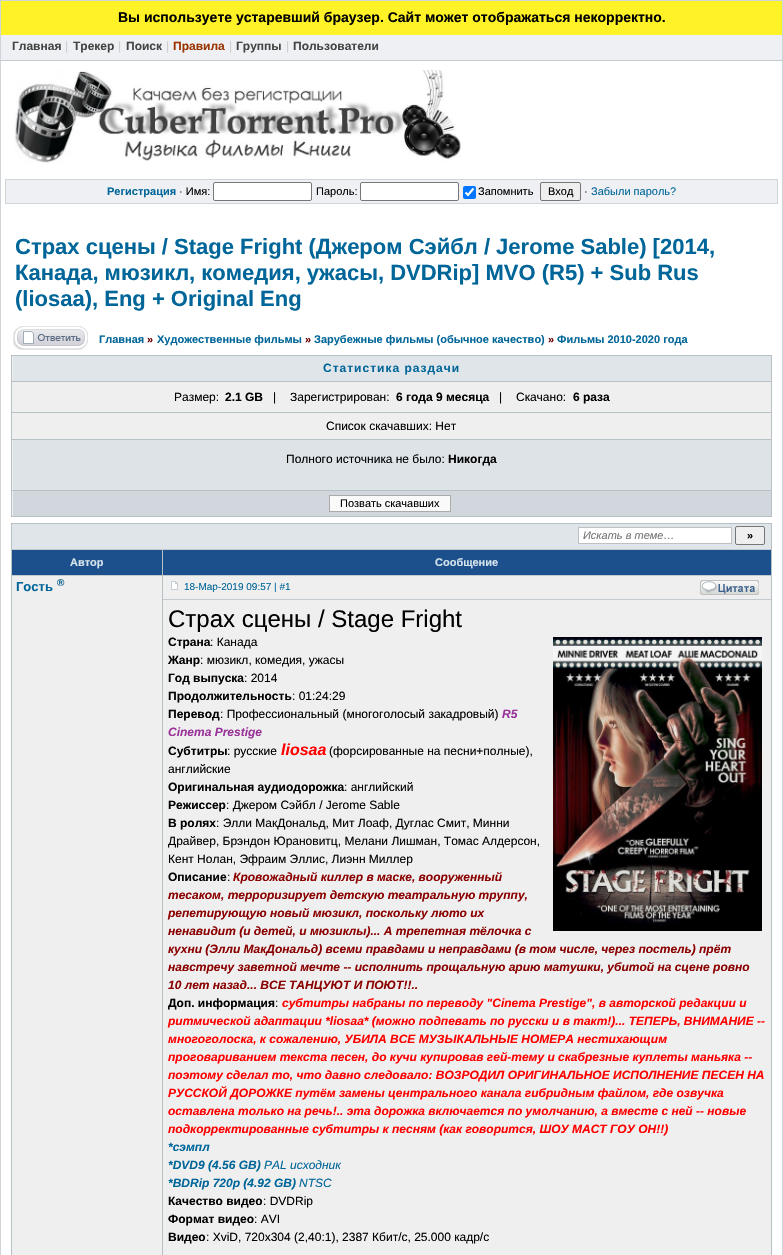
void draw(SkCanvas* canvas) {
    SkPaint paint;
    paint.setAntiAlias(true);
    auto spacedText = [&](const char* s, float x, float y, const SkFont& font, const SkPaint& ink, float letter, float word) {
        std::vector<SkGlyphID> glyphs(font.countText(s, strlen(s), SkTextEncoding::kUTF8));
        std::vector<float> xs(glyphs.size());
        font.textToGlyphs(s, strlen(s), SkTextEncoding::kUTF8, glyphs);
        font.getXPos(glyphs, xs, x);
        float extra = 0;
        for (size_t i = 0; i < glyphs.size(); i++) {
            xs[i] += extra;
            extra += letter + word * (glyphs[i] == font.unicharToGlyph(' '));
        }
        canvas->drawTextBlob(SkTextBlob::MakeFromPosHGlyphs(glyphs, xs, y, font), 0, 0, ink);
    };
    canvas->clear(0xFFFFFFFF);
    paint.setStyle(SkPaint::kStroke_Style);
    paint.setStrokeWidth(1);
    paint.setColor(0xFFCFD4D8);
    canvas->drawRect(SkRect::MakeXYWH(0.5f, 0.5f, 782, 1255), paint);
    paint.setStyle(SkPaint::kFill_Style);
    paint.setColor(0xFFFFF227);
    canvas->drawRect(SkRect::MakeXYWH(1, 1, 781, 34), paint);
    SkFont font1(fontMgr->matchFamilyStyle("Liberation Sans", SkFontStyle::Bold()), 14);
    font1.setSubpixel(true);
    paint.setColor(0xFF000000);
    canvas->drawString("Вы используете устаревший браузер. Сайт может отображаться некорректно.", 118, 22, font1, paint);
    paint.setColor(0xFFEFF0F3);
    canvas->drawRect(SkRect::MakeXYWH(1, 35, 781, 25), paint);
    paint.setColor(0xFFC3CBD1);
    canvas->drawRect(SkRect::MakeXYWH(1, 60, 781, 1), paint);
    SkFont font2(fontMgr->matchFamilyStyle("Liberation Sans", SkFontStyle::Bold()), 12);
    font2.setSubpixel(true);
    paint.setColor(0xFF444444);
    canvas->drawString("Главная", 12, 50, font2, paint);
    SkFont font3(fontMgr->matchFamilyStyle("Liberation Sans", SkFontStyle::Normal()), 12);
    font3.setSubpixel(true);
    paint.setColor(0xFFCDCDCD);
    canvas->drawString("|", 65, 50, font3, paint);
    paint.setColor(0xFF444444);
    canvas->drawString("Трекер", 73, 50, font2, paint);
    paint.setColor(0xFFCDCDCD);
    canvas->drawString("|", 118, 50, font3, paint);
    paint.setColor(0xFF444444);
    canvas->drawString("Поиск", 126, 50, font2, paint);
    paint.setColor(0xFFCDCDCD);
    canvas->drawString("|", 166, 50, font3, paint);
    paint.setColor(0xFF993300);
    canvas->drawString("Правила", 173, 50, font2, paint);
    paint.setColor(0xFFCDCDCD);
    canvas->drawString("|", 229, 50, font3, paint);
    paint.setColor(0xFF444444);
    canvas->drawString("Группы", 236, 50, font2, paint);
    paint.setColor(0xFFCDCDCD);
    canvas->drawString("|", 286, 50, font3, paint);
    paint.setColor(0xFF444444);
    canvas->drawString("Пользователи", 293, 50, font2, paint);
    canvas->drawImageRect(SkImages::DeferredFromEncodedData(SkData::MakeFromFileName("img1.png")), SkRect::MakeXYWH(14, 70, 447, 93), SkSamplingOptions());
    paint.setColor(0xFFEFF0F3);
    canvas->drawRect(SkRect::MakeXYWH(5.5f, 179.5f, 772, 24), paint);
    paint.setStyle(SkPaint::kStroke_Style);
    paint.setColor(0xFFCFD4D8);
    canvas->drawRect(SkRect::MakeXYWH(5.5f, 179.5f, 772, 24), paint);
    SkFont font4(fontMgr->matchFamilyStyle("Liberation Sans", SkFontStyle::Bold()), 11);
    font4.setSubpixel(true);
    paint.setStyle(SkPaint::kFill_Style);
    paint.setColor(0xFF006699);
    canvas->drawString("Регистрация", 107, 195, font4, paint);
    SkFont font5(fontMgr->matchFamilyStyle("Liberation Sans", SkFontStyle::Normal()), 11);
    font5.setSubpixel(true);
    paint.setColor(0xFF000000);
    canvas->drawString("· Имя:", 179, 195, font5, paint);
    paint.setColor(0xFFFFFFFF);
    canvas->drawRoundRect(SkRect::MakeXYWH(213.5f, 182.5f, 98, 18), 1.5f, 1.5f, paint);
    paint.setStyle(SkPaint::kStroke_Style);
    paint.setColor(0xFF767676);
    canvas->drawRoundRect(SkRect::MakeXYWH(213.5f, 182.5f, 98, 18), 1.5f, 1.5f, paint);
    paint.setStyle(SkPaint::kFill_Style);
    paint.setColor(0xFF000000);
    canvas->drawString("Пароль:", 316, 195, font5, paint);
    paint.setColor(0xFFFFFFFF);
    canvas->drawRoundRect(SkRect::MakeXYWH(360.5f, 182.5f, 98, 18), 1.5f, 1.5f, paint);
    paint.setStyle(SkPaint::kStroke_Style);
    paint.setColor(0xFF767676);
    canvas->drawRoundRect(SkRect::MakeXYWH(360.5f, 182.5f, 98, 18), 1.5f, 1.5f, paint);
    paint.setStyle(SkPaint::kFill_Style);
    paint.setColor(0xFF0075FF);
    canvas->drawRoundRect(SkRect::MakeXYWH(463, 186, 13, 13), 2, 2, paint);
    paint.setStyle(SkPaint::kStroke_Style);
    paint.setStrokeWidth(2.1f);
    paint.setColor(0xFFFFFFFF);
    canvas->drawPath(SkPathBuilder().moveTo(465.5f, 192.5f).lineTo(468, 195).lineTo(473.5f, 188.5f).detach(), paint);
    paint.setStyle(SkPaint::kFill_Style);
    paint.setColor(0xFF000000);
    canvas->drawString("Запомнить", 478, 195, font5, paint);
    paint.setColor(0xFFEFEFEF);
    canvas->drawRoundRect(SkRect::MakeXYWH(540.5f, 182.5f, 40, 18), 1.5f, 1.5f, paint);
    paint.setStyle(SkPaint::kStroke_Style);
    paint.setStrokeWidth(1);
    paint.setColor(0xFF767676);
    canvas->drawRoundRect(SkRect::MakeXYWH(540.5f, 182.5f, 40, 18), 1.5f, 1.5f, paint);
    paint.setStyle(SkPaint::kFill_Style);
    paint.setColor(0xFF000000);
    canvas->drawString("Вход", 548, 195, font5, paint);
    canvas->drawString("·", 584, 195, font5, paint);
    paint.setColor(0xFF006699);
    canvas->drawString("Забыли пароль?", 591, 195, font5, paint);
    SkFont font6(fontMgr->matchFamilyStyle("Liberation Sans", SkFontStyle::Bold()), 22);
    font6.setSubpixel(true);
    canvas->drawString("Страх сцены / Stage Fright (Джером Сэйбл / Jerome Sable) [2014,", 15, 254, font6, paint);
    canvas->drawString("Канада, мюзикл, комедия, ужасы, DVDRip] MVO (R5) + Sub Rus", 15, 280, font6, paint);
    canvas->drawString("(liosaa), Eng + Original Eng", 15, 306, font6, paint);
    canvas->drawImageRect(SkImages::DeferredFromEncodedData(SkData::MakeFromFileName("img2.png")), SkRect::MakeXYWH(13, 326, 75, 24), SkSamplingOptions());
    canvas->drawString("Главная", 99, 343, font4, paint);
    paint.setColor(0xFF660000);
    canvas->drawString("»", 147, 343, font4, paint);
    paint.setColor(0xFF006699);
    canvas->drawString("Художественные фильмы", 157, 343, font4, paint);
    paint.setColor(0xFF660000);
    canvas->drawString("»", 305, 343, font4, paint);
    paint.setColor(0xFF006699);
    canvas->drawString("Зарубежные фильмы (обычное качество)", 314, 343, font4, paint);
    paint.setColor(0xFF660000);
    canvas->drawString("»", 548, 343, font4, paint);
    paint.setColor(0xFF006699);
    canvas->drawString("Фильмы 2010-2020 года", 557, 343, font4, paint);
    paint.setColor(0xFFB7C0C5);
    canvas->drawRect(SkRect::MakeXYWH(11, 355, 760, 161), paint);
    paint.setColor(0xFFEFEFEF);
    canvas->drawRect(SkRect::MakeXYWH(12, 356, 759, 160), paint);
    paint.setColor(0xFFE0E5E9);
    canvas->drawRect(SkRect::MakeXYWH(13, 356, 758, 25), paint);
    paint.setColor(0xFFB7C0C5);
    canvas->drawRect(SkRect::MakeXYWH(771, 355, 1, 162), paint);
    canvas->drawRect(SkRect::MakeXYWH(11, 381, 761, 1), paint);
    paint.setColor(0xFF006699);
    spacedText("Статистика раздачи", 323, 372, font2, paint, 1, 0);
    paint.setColor(0xFFB7C0C5);
    canvas->drawRect(SkRect::MakeXYWH(11, 412, 761, 1), paint);
    paint.setColor(0xFF000000);
    canvas->drawString("Размер:", 174, 401, font3, paint);
    canvas->drawString("2.1 GB", 225, 401, font2, paint);
    canvas->drawString("|", 273, 401, font3, paint);
    canvas->drawString("Зарегистрирован:", 290, 401, font3, paint);
    canvas->drawString("6 года 9 месяца", 396, 401, font2, paint);
    canvas->drawString("|", 499, 401, font3, paint);
    canvas->drawString("Скачано:", 516, 401, font3, paint);
    canvas->drawString("6 раза", 573, 401, font2, paint);
    paint.setColor(0xFFB7C0C5);
    canvas->drawRect(SkRect::MakeXYWH(11, 439, 761, 1), paint);
    paint.setColor(0xFF000000);
    canvas->drawString("Список скачавших: Нет", 326, 430, font3, paint);
    paint.setColor(0xFFDEE3E7);
    canvas->drawRect(SkRect::MakeXYWH(13, 440, 758, 50), paint);
    paint.setColor(0xFFB7C0C5);
    canvas->drawRect(SkRect::MakeXYWH(11, 490, 761, 1), paint);
    paint.setColor(0xFF000000);
    canvas->drawString("Полного источника не было:", 286, 463, font3, paint);
    canvas->drawString("Никогда", 448, 463, font2, paint);
    paint.setColor(0xFFD1D7DC);
    canvas->drawRect(SkRect::MakeXYWH(13, 491, 758, 25), paint);
    paint.setColor(0xFFB7C0C5);
    canvas->drawRect(SkRect::MakeXYWH(11, 516, 761, 1), paint);
    paint.setColor(0xFFFAFAFA);
    canvas->drawRect(SkRect::MakeXYWH(329.5f, 495.5f, 121, 16), paint);
    paint.setStyle(SkPaint::kStroke_Style);
    paint.setColor(0xFFABABAB);
    canvas->drawRect(SkRect::MakeXYWH(329.5f, 495.5f, 121, 16), paint);
    paint.setStyle(SkPaint::kFill_Style);
    paint.setColor(0xFF000000);
    canvas->drawString("Позвать скачавших", 340, 507, font5, paint);
    paint.setColor(0xFFB7C0C5);
    canvas->drawRect(SkRect::MakeXYWH(11, 523, 761, 1), paint);
    canvas->drawRect(SkRect::MakeXYWH(771, 523, 1, 732), paint);
    canvas->drawRect(SkRect::MakeXYWH(11, 523, 1, 732), paint);
    paint.setColor(0xFFE0E5E9);
    canvas->drawRect(SkRect::MakeXYWH(12, 524, 759, 25), paint);
    paint.setColor(0xFFFFFFFF);
    canvas->drawRect(SkRect::MakeXYWH(578.5f, 527.5f, 153, 16), paint);
    paint.setStyle(SkPaint::kStroke_Style);
    paint.setColor(0xFFC0C0C0);
    canvas->drawRect(SkRect::MakeXYWH(578.5f, 527.5f, 153, 16), paint);
    SkFont font7(fontMgr->matchFamilyStyle("Liberation Sans", SkFontStyle::Italic()), 11);
    font7.setSubpixel(true);
    paint.setStyle(SkPaint::kFill_Style);
    paint.setColor(0xFF757575);
    canvas->drawString("Искать в теме…", 583, 539, font7, paint);
    paint.setColor(0xFFEFEFEF);
    canvas->drawRoundRect(SkRect::MakeXYWH(735.5f, 526.5f, 29, 18), 1.5f, 1.5f, paint);
    paint.setStyle(SkPaint::kStroke_Style);
    paint.setColor(0xFF767676);
    canvas->drawRoundRect(SkRect::MakeXYWH(735.5f, 526.5f, 29, 18), 1.5f, 1.5f, paint);
    paint.setStyle(SkPaint::kFill_Style);
    paint.setColor(0xFF000000);
    canvas->drawString("»", 747, 539, font4, paint);
    paint.setColor(0xFF1C508C);
    canvas->drawRect(SkRect::MakeXYWH(12, 550, 150, 25), paint);
    paint.setColor(0xFFC3CBD1);
    canvas->drawRect(SkRect::MakeXYWH(12, 549, 759, 1), paint);
    paint.setColor(0xFFB7C0C5);
    canvas->drawRect(SkRect::MakeXYWH(162, 549, 1, 26), paint);
    paint.setColor(0xFFD5E4EC);
    canvas->drawString("Автор", 70, 566, font4, paint);
    paint.setColor(0xFF1C508C);
    canvas->drawRect(SkRect::MakeXYWH(163, 550, 608, 25), paint);
    paint.setColor(0xFFD5E4EC);
    canvas->drawString("Сообщение", 435, 566, font4, paint);
    paint.setColor(0xFFEFEFEF);
    canvas->drawRect(SkRect::MakeXYWH(12, 576, 759, 679), paint);
    paint.setColor(0xFFC3CBD1);
    canvas->drawRect(SkRect::MakeXYWH(12, 575, 759, 1), paint);
    paint.setColor(0xFFB7C0C5);
    canvas->drawRect(SkRect::MakeXYWH(162, 575, 1, 680), paint);
    SkFont font8(fontMgr->matchFamilyStyle("Liberation Sans", SkFontStyle::Bold()), 13);
    font8.setSubpixel(true);
    paint.setColor(0xFF006699);
    canvas->drawString("Гость", 16, 591, font8, paint);
    SkFont font9(fontMgr->matchFamilyStyle("Liberation Sans", SkFontStyle::Bold()), 10);
    font9.setSubpixel(true);
    paint.setColor(0xFF005A88);
    canvas->drawString("®", 57, 586, font9, paint);
    paint.setColor(0xFFC3CBD1);
    canvas->drawRect(SkRect::MakeXYWH(163, 599, 608, 1), paint);
    canvas->drawImageRect(SkImages::DeferredFromEncodedData(SkData::MakeFromFileName("img3.png")), SkRect::MakeXYWH(171, 581, 7, 9), SkSamplingOptions());
    SkFont font10(fontMgr->matchFamilyStyle("Liberation Sans", SkFontStyle::Normal()), 10);
    font10.setSubpixel(true);
    paint.setColor(0xFF006699);
    canvas->drawString("18-Мар-2019 09:57 | #1", 184, 590, font10, paint);
    canvas->drawImageRect(SkImages::DeferredFromEncodedData(SkData::MakeFromFileName("img4.png")), SkRect::MakeXYWH(700, 580, 59, 15), SkSamplingOptions());
    SkFont font11(fontMgr->matchFamilyStyle("Liberation Sans", SkFontStyle::Normal()), 24);
    font11.setSubpixel(true);
    paint.setColor(0xFF000000);
    canvas->drawString("Страх сцены / Stage Fright", 168, 627, font11, paint);
    canvas->drawString("Страна", 168, 646, font2, paint);
    canvas->drawString(": Канада", 210, 646, font3, paint);
    canvas->drawImageRect(SkImages::DeferredFromEncodedData(SkData::MakeFromFileName("img5.png")), SkRect::MakeXYWH(553, 637, 209, 294), SkSamplingOptions());
    canvas->drawString("Жанр", 168, 664, font2, paint);
    canvas->drawString(": мюзикл, комедия, ужасы", 200, 664, font3, paint);
    canvas->drawString("Год выпуска", 168, 682, font2, paint);
    canvas->drawString(": 2014", 244, 682, font3, paint);
    canvas->drawString("Продолжительность", 168, 700, font2, paint);
    canvas->drawString(": 01:24:29", 292, 700, font3, paint);
    canvas->drawString("Перевод", 168, 718, font2, paint);
    canvas->drawString(": Профессиональный (многоголосый закадровый)", 220, 718, font3, paint);
    SkFont font12(fontMgr->matchFamilyStyle("Liberation Sans", SkFontStyle::BoldItalic()), 12);
    font12.setSubpixel(true);
    paint.setColor(0xFF993399);
    canvas->drawString("R5", 502, 718, font12, paint);
    canvas->drawString("Cinema Prestige", 168, 736, font12, paint);
    paint.setColor(0xFF000000);
    canvas->drawString("Субтитры", 168, 755, font2, paint);
    canvas->drawString(": русские", 227, 755, font3, paint);
    SkFont font13(fontMgr->matchFamilyStyle("Liberation Sans", SkFontStyle::BoldItalic()), 16);
    font13.setSubpixel(true);
    paint.setColor(0xFFFF0000);
    canvas->drawString("liosaa", 281, 755, font13, paint);
    paint.setColor(0xFF000000);
    canvas->drawString("(форсированные на песни+полные),", 329, 755, font3, paint);
    canvas->drawString("английские", 168, 773, font3, paint);
    canvas->drawString("Оригинальная аудиодорожка", 168, 791, font2, paint);
    canvas->drawString(": английский", 344, 791, font3, paint);
    canvas->drawString("Режиссер", 168, 809, font2, paint);
    canvas->drawString(": Джером Сэйбл / Jerome Sable", 226, 809, font3, paint);
    canvas->drawString("В ролях", 168, 827, font2, paint);
    canvas->drawString(": Элли МакДональд, Мит Лоаф, Дуглас Смит, Минни", 216, 827, font3, paint);
    canvas->drawString("Драйвер, Брэндон Юрановитц, Мелани Лишман, Томас Алдерсон,", 168, 845, font3, paint);
    canvas->drawString("Кент Нолан, Эфраим Эллис, Лиэнн Миллер", 168, 863, font3, paint);
    canvas->drawString("Описание", 168, 881, font2, paint);
    canvas->drawString(":", 227, 881, font3, paint);
    paint.setColor(0xFF8B0000);
    canvas->drawString("Кровожадный киллер в маске, вооруженный", 233, 881, font12, paint);
    canvas->drawString("тесаком, терроризирует детскую театральную труппу,", 168, 899, font12, paint);
    canvas->drawString("репетирующую новый мюзикл, поскольку люто их", 168, 917, font12, paint);
    canvas->drawString("ненавидит (и детей, и мюзиклы)... А трепетная тёлочка с", 168, 935, font12, paint);
    canvas->drawString("кухни (Элли МакДональд) всеми правдами и неправдами (в том числе, через постель) прёт", 168, 953, font12, paint);
    canvas->drawString("навстречу заветной мечте -- исполнить прощальную арию матушки, убитой на сцене ровно", 168, 971, font12, paint);
    canvas->drawString("10 лет назад... ВСЕ ТАНЦУЮТ И ПОЮТ!!..", 168, 989, font12, paint);
    paint.setColor(0xFF000000);
    canvas->drawString("Доп. информация", 168, 1007, font2, paint);
    canvas->drawString(":", 275, 1007, font3, paint);
    paint.setColor(0xFFFF0000);
    canvas->drawString("субтитры набраны по переводу \"Cinema Prestige\", в авторской редакции и", 282, 1007, font12, paint);
    canvas->drawString("ритмической адаптации *liosaa* (можно подпевать по русски и в такт!)... ТЕПЕРЬ, ВНИМАНИЕ --", 168, 1025, font12, paint);
    canvas->drawString("многоголоска, к сожалению, УБИЛА ВСЕ МУЗЫКАЛЬНЫЕ НОМЕРА нестихающим", 168, 1043, font12, paint);
    canvas->drawString("проговариванием текста песен, до кучи купировав гей-тему и скабрезные куплеты маньяка --", 168, 1061, font12, paint);
    canvas->drawString("поэтому сделал то, что давно следовало: ВОЗРОДИЛ ОРИГИНАЛЬНОЕ ИСПОЛНЕНИЕ ПЕСЕН НА", 168, 1079, font12, paint);
    canvas->drawString("РУССКОЙ ДОРОЖКЕ путём замены центрального канала гибридным файлом, где озвучка", 168, 1097, font12, paint);
    canvas->drawString("оставлена только на речь!.. эта дорожка включается по умолчанию, а вместе с ней -- новые", 168, 1115, font12, paint);
    canvas->drawString("подкорректированные субтитры к песням (как говорится, ШОУ МАСТ ГОУ ОН!!)", 168, 1133, font12, paint);
    paint.setColor(0xFF006699);
    canvas->drawString("*cэмпл", 168, 1151, font12, paint);
    canvas->drawString("*DVD9 (4.56 GB)", 168, 1169, font12, paint);
    SkFont font14(fontMgr->matchFamilyStyle("Liberation Sans", SkFontStyle::Italic()), 12);
    font14.setSubpixel(true);
    canvas->drawString("PAL исходник", 264, 1169, font14, paint);
    canvas->drawString("*BDRip 720p (4.92 GB)", 168, 1187, font12, paint);
    canvas->drawString("NTSC", 299, 1187, font14, paint);
    paint.setColor(0xFF000000);
    canvas->drawString("Качество видео", 168, 1205, font2, paint);
    canvas->drawString(": DVDRip", 263, 1205, font3, paint);
    canvas->drawString("Формат видео", 168, 1223, font2, paint);
    canvas->drawString(": AVI", 254, 1223, font3, paint);
    canvas->drawString("Видео", 168, 1241, font2, paint);
    canvas->drawString(": XviD, 720x304 (2,40:1), 2387 Кбит/с, 25.000 кадр/с", 206, 1241, font3, paint);
}
